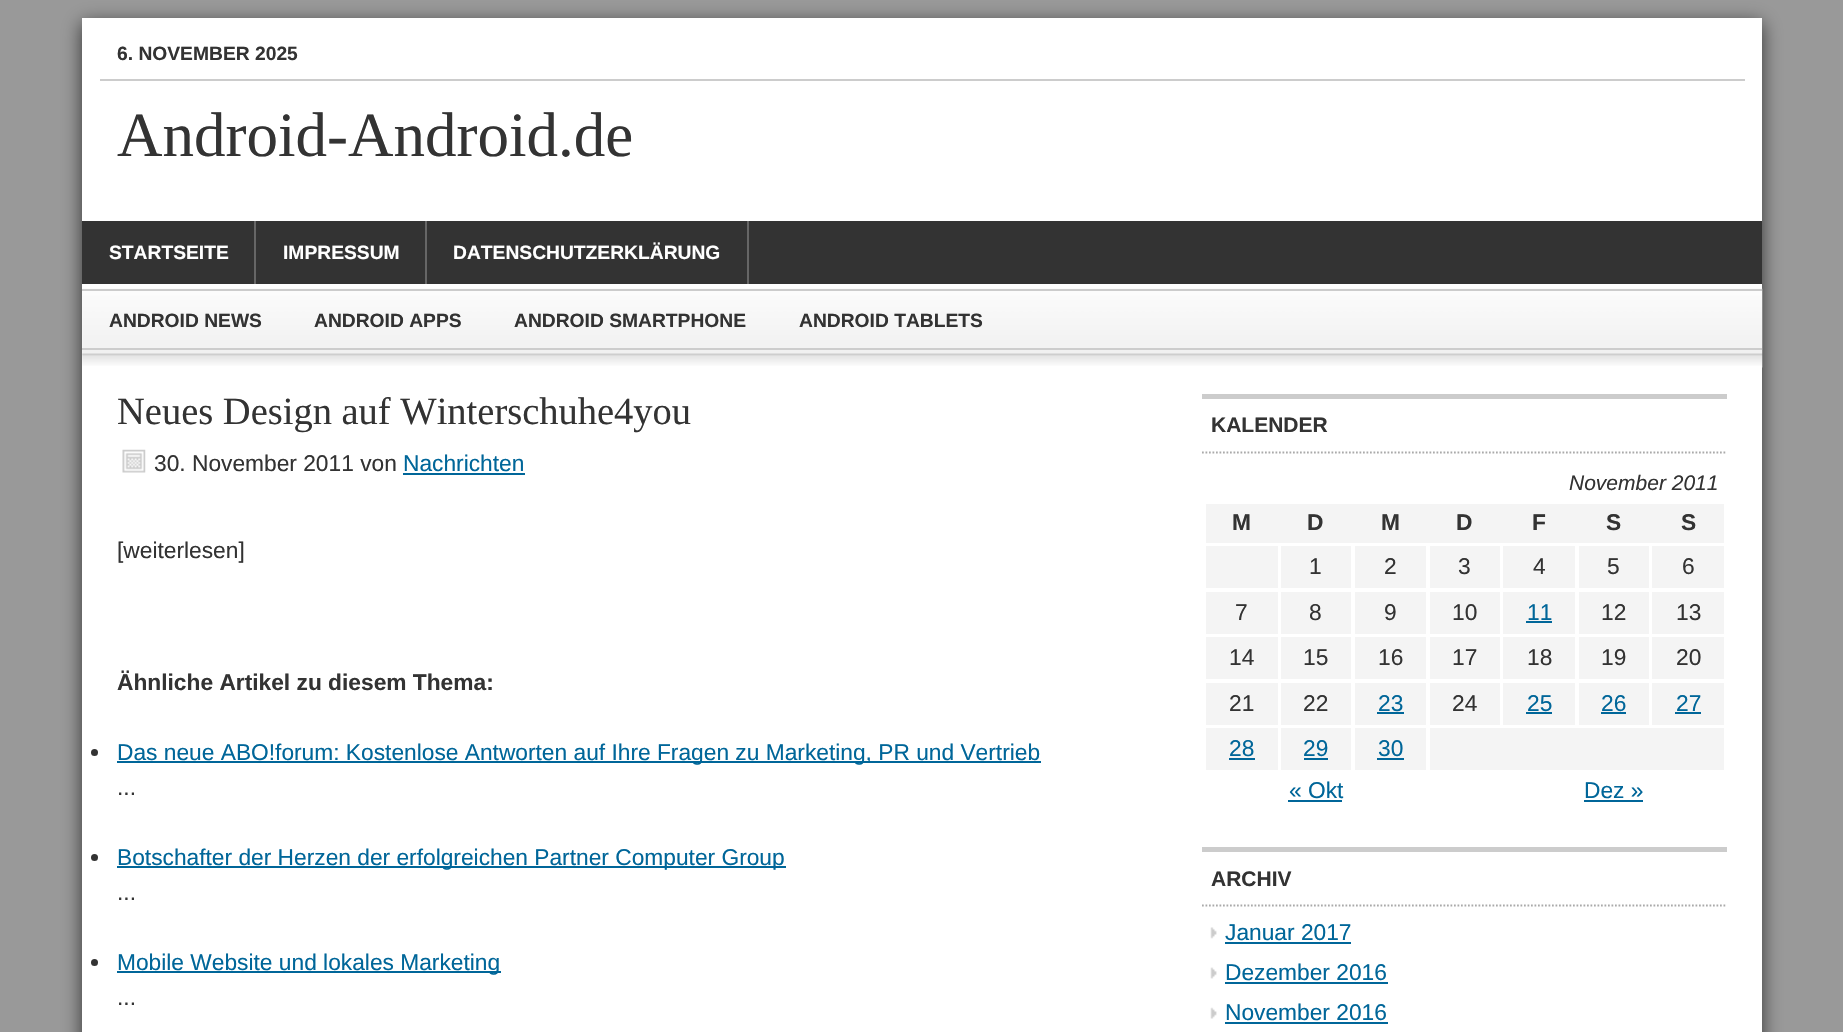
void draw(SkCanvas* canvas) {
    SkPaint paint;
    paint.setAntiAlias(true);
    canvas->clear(0xFF999999);
    paint.setColor(0xFF333333);
    paint.setMaskFilter(SkMaskFilter::MakeBlur(kNormal_SkBlurStyle, 9));
    canvas->drawRect(SkRect::MakeXYWH(82, 23, 1680, 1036), paint);
    paint.setMaskFilter(nullptr);
    paint.setColor(0xFFFFFFFF);
    canvas->drawRect(SkRect::MakeXYWH(82, 18, 1680, 1014), paint);
    paint.setColor(0xFFCCCCCC);
    canvas->drawRect(SkRect::MakeXYWH(100, 79, 1645, 2), paint);
    SkFont font1(fontMgr->matchFamilyStyle("Liberation Sans", SkFontStyle::Bold()), 19.25f);
    font1.setSubpixel(true);
    paint.setColor(0xFF333333);
    canvas->drawString("6. NOVEMBER 2025", 117, 60, font1, paint);
    SkFont font2(fontMgr->matchFamilyStyle("Liberation Serif", SkFontStyle::Normal()), 63);
    font2.setSubpixel(true);
    canvas->drawString("Android-Android.de", 117, 156, font2, paint);
    canvas->drawRect(SkRect::MakeXYWH(82, 221, 1680, 63), paint);
    paint.setColor(0xFF666666);
    canvas->drawRect(SkRect::MakeXYWH(254, 221, 2, 63), paint);
    paint.setColor(0xFFFFFFFF);
    canvas->drawString("STARTSEITE", 109, 259, font1, paint);
    paint.setColor(0xFF666666);
    canvas->drawRect(SkRect::MakeXYWH(425, 221, 2, 63), paint);
    paint.setColor(0xFFFFFFFF);
    canvas->drawString("IMPRESSUM", 283, 259, font1, paint);
    paint.setColor(0xFF666666);
    canvas->drawRect(SkRect::MakeXYWH(747, 221, 2, 63), paint);
    paint.setColor(0xFFFFFFFF);
    canvas->drawString("DATENSCHUTZERKLÄRUNG", 453, 259, font1, paint);
    canvas->drawImageRect(SkImages::DeferredFromEncodedData(SkData::MakeFromFileName("img1.png")), SkRect::MakeXYWH(82, 288, 1681, 62), SkSamplingOptions());
    paint.setColor(0xFFCCCCCC);
    canvas->drawRect(SkRect::MakeXYWH(82, 289, 1680, 2), paint);
    canvas->drawRect(SkRect::MakeXYWH(82, 348, 1680, 2), paint);
    paint.setColor(0xFF333333);
    canvas->drawString("ANDROID NEWS", 109, 327, font1, paint);
    canvas->drawString("ANDROID APPS", 314, 327, font1, paint);
    canvas->drawString("ANDROID SMARTPHONE", 514, 327, font1, paint);
    canvas->drawString("ANDROID TABLETS", 799, 327, font1, paint);
    canvas->drawImageRect(SkImages::DeferredFromEncodedData(SkData::MakeFromFileName("img2.png")), SkRect::MakeXYWH(82, 350, 1681, 18), SkSamplingOptions());
    SkFont font3(fontMgr->matchFamilyStyle("Liberation Serif", SkFontStyle::Normal()), 38.5f);
    font3.setSubpixel(true);
    canvas->drawString("Neues Design auf Winterschuhe4you", 117, 424, font3, paint);
    canvas->drawImageRect(SkImages::DeferredFromEncodedData(SkData::MakeFromFileName("img3.png")), SkRect::MakeXYWH(122, 449, 24, 24), SkSamplingOptions());
    SkFont font4(fontMgr->matchFamilyStyle("Liberation Sans", SkFontStyle::Normal()), 22.75f);
    font4.setSubpixel(true);
    canvas->drawString("30. November 2011 von", 154, 471, font4, paint);
    paint.setColor(0xFF006699);
    canvas->drawString("Nachrichten", 403, 471, font4, paint);
    canvas->drawRect(SkRect::MakeXYWH(403, 473, 122, 2), paint);
    paint.setColor(0xFF333333);
    canvas->drawString("[weiterlesen]", 117, 558, font4, paint);
    SkFont font5(fontMgr->matchFamilyStyle("Liberation Sans", SkFontStyle::Bold()), 22.75f);
    font5.setSubpixel(true);
    canvas->drawString("Ähnliche Artikel zu diesem Thema:", 117, 690, font5, paint);
    canvas->drawCircle(94.5f, 752.5f, 3.5f, paint);
    paint.setColor(0xFF006699);
    canvas->drawRect(SkRect::MakeXYWH(117, 761, 924, 2), paint);
    canvas->drawString("Das neue ABO!forum: Kostenlose Antworten auf Ihre Fragen zu Marketing, PR und Vertrieb", 117, 760, font4, paint);
    paint.setColor(0xFF333333);
    canvas->drawString("...", 117, 795, font4, paint);
    canvas->drawCircle(94.5f, 857.5f, 3.5f, paint);
    paint.setColor(0xFF006699);
    canvas->drawRect(SkRect::MakeXYWH(117, 866, 669, 2), paint);
    canvas->drawString("Botschafter der Herzen der erfolgreichen Partner Computer Group", 117, 865, font4, paint);
    paint.setColor(0xFF333333);
    canvas->drawString("...", 117, 900, font4, paint);
    canvas->drawCircle(94.5f, 962.5f, 3.5f, paint);
    paint.setColor(0xFF006699);
    canvas->drawRect(SkRect::MakeXYWH(117, 971, 384, 2), paint);
    canvas->drawString("Mobile Website und lokales Marketing", 117, 970, font4, paint);
    paint.setColor(0xFF333333);
    canvas->drawString("...", 117, 1005, font4, paint);
    paint.setColor(0xFFCCCCCC);
    canvas->drawRect(SkRect::MakeXYWH(1202, 394, 525, 5), paint);
    paint.setStyle(SkPaint::kStroke_Style);
    paint.setStrokeWidth(1.8f);
    paint.setColor(0xFFAAAAAA);
    paint.setPathEffect(SkDashPathEffect::Make({{1.75f, 1.75f}}, 0));
    canvas->drawPath(SkPathBuilder().moveTo(1202, 452.5f).lineTo(1727, 452.5f).detach(), paint);
    paint.setPathEffect(nullptr);
    SkFont font6(fontMgr->matchFamilyStyle("Liberation Sans", SkFontStyle::Bold()), 21);
    font6.setSubpixel(true);
    paint.setStyle(SkPaint::kFill_Style);
    paint.setColor(0xFF333333);
    canvas->drawString("KALENDER", 1211, 432, font6, paint);
    SkFont font7(fontMgr->matchFamilyStyle("Liberation Sans", SkFontStyle::Italic()), 21);
    font7.setSubpixel(true);
    canvas->drawString("November 2011", 1569, 490, font7, paint);
    paint.setColor(0xFFF4F4F4);
    canvas->drawRect(SkRect::MakeXYWH(1206, 504, 518, 39), paint);
    paint.setColor(0xFF333333);
    canvas->drawString("M", 1232, 530, font5, paint);
    canvas->drawString("D", 1307, 530, font5, paint);
    canvas->drawString("M", 1381, 530, font5, paint);
    canvas->drawString("D", 1456, 530, font5, paint);
    canvas->drawString("F", 1532, 530, font5, paint);
    canvas->drawString("S", 1606, 530, font5, paint);
    canvas->drawString("S", 1681, 530, font5, paint);
    paint.setColor(0xFFF4F4F4);
    canvas->drawRect(SkRect::MakeXYWH(1206, 546, 72, 42), paint);
    canvas->drawRect(SkRect::MakeXYWH(1281, 546, 70, 42), paint);
    paint.setColor(0xFF333333);
    canvas->drawString("1", 1309, 574, font4, paint);
    paint.setColor(0xFFF4F4F4);
    canvas->drawRect(SkRect::MakeXYWH(1355, 546, 71, 42), paint);
    paint.setColor(0xFF333333);
    canvas->drawString("2", 1384, 574, font4, paint);
    paint.setColor(0xFFF4F4F4);
    canvas->drawRect(SkRect::MakeXYWH(1430, 546, 70, 42), paint);
    paint.setColor(0xFF333333);
    canvas->drawString("3", 1458, 574, font4, paint);
    paint.setColor(0xFFF4F4F4);
    canvas->drawRect(SkRect::MakeXYWH(1503, 546, 72, 42), paint);
    paint.setColor(0xFF333333);
    canvas->drawString("4", 1533, 574, font4, paint);
    paint.setColor(0xFFF4F4F4);
    canvas->drawRect(SkRect::MakeXYWH(1579, 546, 70, 42), paint);
    paint.setColor(0xFF333333);
    canvas->drawString("5", 1607, 574, font4, paint);
    paint.setColor(0xFFF4F4F4);
    canvas->drawRect(SkRect::MakeXYWH(1652, 546, 72, 42), paint);
    paint.setColor(0xFF333333);
    canvas->drawString("6", 1682, 574, font4, paint);
    paint.setColor(0xFFF4F4F4);
    canvas->drawRect(SkRect::MakeXYWH(1206, 592, 72, 42), paint);
    paint.setColor(0xFF333333);
    canvas->drawString("7", 1235, 620, font4, paint);
    paint.setColor(0xFFF4F4F4);
    canvas->drawRect(SkRect::MakeXYWH(1281, 592, 70, 42), paint);
    paint.setColor(0xFF333333);
    canvas->drawString("8", 1309, 620, font4, paint);
    paint.setColor(0xFFF4F4F4);
    canvas->drawRect(SkRect::MakeXYWH(1355, 592, 71, 42), paint);
    paint.setColor(0xFF333333);
    canvas->drawString("9", 1384, 620, font4, paint);
    paint.setColor(0xFFF4F4F4);
    canvas->drawRect(SkRect::MakeXYWH(1430, 592, 70, 42), paint);
    paint.setColor(0xFF333333);
    canvas->drawString("10", 1452, 620, font4, paint);
    paint.setColor(0xFFF4F4F4);
    canvas->drawRect(SkRect::MakeXYWH(1503, 592, 72, 42), paint);
    paint.setColor(0xFF006699);
    canvas->drawString("11", 1527, 620, font4, paint);
    canvas->drawRect(SkRect::MakeXYWH(1526, 621, 26, 2), paint);
    paint.setColor(0xFFF4F4F4);
    canvas->drawRect(SkRect::MakeXYWH(1579, 592, 70, 42), paint);
    paint.setColor(0xFF333333);
    canvas->drawString("12", 1601, 620, font4, paint);
    paint.setColor(0xFFF4F4F4);
    canvas->drawRect(SkRect::MakeXYWH(1652, 592, 72, 42), paint);
    paint.setColor(0xFF333333);
    canvas->drawString("13", 1676, 620, font4, paint);
    paint.setColor(0xFFF4F4F4);
    canvas->drawRect(SkRect::MakeXYWH(1206, 637, 72, 42), paint);
    paint.setColor(0xFF333333);
    canvas->drawString("14", 1229, 665, font4, paint);
    paint.setColor(0xFFF4F4F4);
    canvas->drawRect(SkRect::MakeXYWH(1281, 637, 70, 42), paint);
    paint.setColor(0xFF333333);
    canvas->drawString("15", 1303, 665, font4, paint);
    paint.setColor(0xFFF4F4F4);
    canvas->drawRect(SkRect::MakeXYWH(1355, 637, 71, 42), paint);
    paint.setColor(0xFF333333);
    canvas->drawString("16", 1378, 665, font4, paint);
    paint.setColor(0xFFF4F4F4);
    canvas->drawRect(SkRect::MakeXYWH(1430, 637, 70, 42), paint);
    paint.setColor(0xFF333333);
    canvas->drawString("17", 1452, 665, font4, paint);
    paint.setColor(0xFFF4F4F4);
    canvas->drawRect(SkRect::MakeXYWH(1503, 637, 72, 42), paint);
    paint.setColor(0xFF333333);
    canvas->drawString("18", 1527, 665, font4, paint);
    paint.setColor(0xFFF4F4F4);
    canvas->drawRect(SkRect::MakeXYWH(1579, 637, 70, 42), paint);
    paint.setColor(0xFF333333);
    canvas->drawString("19", 1601, 665, font4, paint);
    paint.setColor(0xFFF4F4F4);
    canvas->drawRect(SkRect::MakeXYWH(1652, 637, 72, 42), paint);
    paint.setColor(0xFF333333);
    canvas->drawString("20", 1676, 665, font4, paint);
    paint.setColor(0xFFF4F4F4);
    canvas->drawRect(SkRect::MakeXYWH(1206, 683, 72, 42), paint);
    paint.setColor(0xFF333333);
    canvas->drawString("21", 1229, 711, font4, paint);
    paint.setColor(0xFFF4F4F4);
    canvas->drawRect(SkRect::MakeXYWH(1281, 683, 70, 42), paint);
    paint.setColor(0xFF333333);
    canvas->drawString("22", 1303, 711, font4, paint);
    paint.setColor(0xFFF4F4F4);
    canvas->drawRect(SkRect::MakeXYWH(1355, 683, 71, 42), paint);
    paint.setColor(0xFF006699);
    canvas->drawString("23", 1378, 711, font4, paint);
    canvas->drawRect(SkRect::MakeXYWH(1377, 712, 27, 2), paint);
    paint.setColor(0xFFF4F4F4);
    canvas->drawRect(SkRect::MakeXYWH(1430, 683, 70, 42), paint);
    paint.setColor(0xFF333333);
    canvas->drawString("24", 1452, 711, font4, paint);
    paint.setColor(0xFFF4F4F4);
    canvas->drawRect(SkRect::MakeXYWH(1503, 683, 72, 42), paint);
    paint.setColor(0xFF006699);
    canvas->drawString("25", 1527, 711, font4, paint);
    canvas->drawRect(SkRect::MakeXYWH(1526, 712, 26, 2), paint);
    paint.setColor(0xFFF4F4F4);
    canvas->drawRect(SkRect::MakeXYWH(1579, 683, 70, 42), paint);
    paint.setColor(0xFF006699);
    canvas->drawString("26", 1601, 711, font4, paint);
    canvas->drawRect(SkRect::MakeXYWH(1601, 712, 25, 2), paint);
    paint.setColor(0xFFF4F4F4);
    canvas->drawRect(SkRect::MakeXYWH(1652, 683, 72, 42), paint);
    paint.setColor(0xFF006699);
    canvas->drawString("27", 1676, 711, font4, paint);
    canvas->drawRect(SkRect::MakeXYWH(1675, 712, 26, 2), paint);
    paint.setColor(0xFFF4F4F4);
    canvas->drawRect(SkRect::MakeXYWH(1206, 728, 72, 42), paint);
    paint.setColor(0xFF006699);
    canvas->drawString("28", 1229, 756, font4, paint);
    canvas->drawRect(SkRect::MakeXYWH(1229, 758, 26, 2), paint);
    paint.setColor(0xFFF4F4F4);
    canvas->drawRect(SkRect::MakeXYWH(1281, 728, 70, 42), paint);
    paint.setColor(0xFF006699);
    canvas->drawString("29", 1303, 756, font4, paint);
    canvas->drawRect(SkRect::MakeXYWH(1304, 758, 24, 2), paint);
    paint.setColor(0xFFF4F4F4);
    canvas->drawRect(SkRect::MakeXYWH(1355, 728, 71, 42), paint);
    paint.setColor(0xFF006699);
    canvas->drawString("30", 1378, 756, font4, paint);
    canvas->drawRect(SkRect::MakeXYWH(1377, 758, 27, 2), paint);
    paint.setColor(0xFFF4F4F4);
    canvas->drawRect(SkRect::MakeXYWH(1430, 728, 294, 42), paint);
    paint.setColor(0xFF006699);
    canvas->drawString("« Okt", 1289, 798, font4, paint);
    canvas->drawRect(SkRect::MakeXYWH(1288, 800, 54, 2), paint);
    canvas->drawString("Dez »", 1584, 798, font4, paint);
    canvas->drawRect(SkRect::MakeXYWH(1584, 800, 59, 2), paint);
    paint.setColor(0xFFCCCCCC);
    canvas->drawRect(SkRect::MakeXYWH(1202, 847, 525, 5), paint);
    paint.setStyle(SkPaint::kStroke_Style);
    paint.setColor(0xFFAAAAAA);
    paint.setPathEffect(SkDashPathEffect::Make({{1.75f, 1.75f}}, 0));
    canvas->drawPath(SkPathBuilder().moveTo(1202, 905.5f).lineTo(1727, 905.5f).detach(), paint);
    paint.setPathEffect(nullptr);
    paint.setStyle(SkPaint::kFill_Style);
    paint.setColor(0xFF333333);
    canvas->drawString("ARCHIV", 1211, 886, font6, paint);
    canvas->drawImageRect(SkImages::DeferredFromEncodedData(SkData::MakeFromFileName("img4.png")), SkRect::MakeXYWH(1210, 927, 7, 12), SkSamplingOptions());
    paint.setColor(0xFF006699);
    canvas->drawString("Januar 2017", 1225, 940, font4, paint);
    canvas->drawRect(SkRect::MakeXYWH(1225, 942, 126, 2), paint);
    canvas->drawImageRect(SkImages::DeferredFromEncodedData(SkData::MakeFromFileName("img5.png")), SkRect::MakeXYWH(1210, 967, 7, 12), SkSamplingOptions());
    canvas->drawString("Dezember 2016", 1225, 980, font4, paint);
    canvas->drawRect(SkRect::MakeXYWH(1225, 982, 163, 2), paint);
    canvas->drawImageRect(SkImages::DeferredFromEncodedData(SkData::MakeFromFileName("img6.png")), SkRect::MakeXYWH(1210, 1007, 7, 12), SkSamplingOptions());
    canvas->drawString("November 2016", 1225, 1020, font4, paint);
    canvas->drawRect(SkRect::MakeXYWH(1225, 1022, 163, 2), paint);
}
